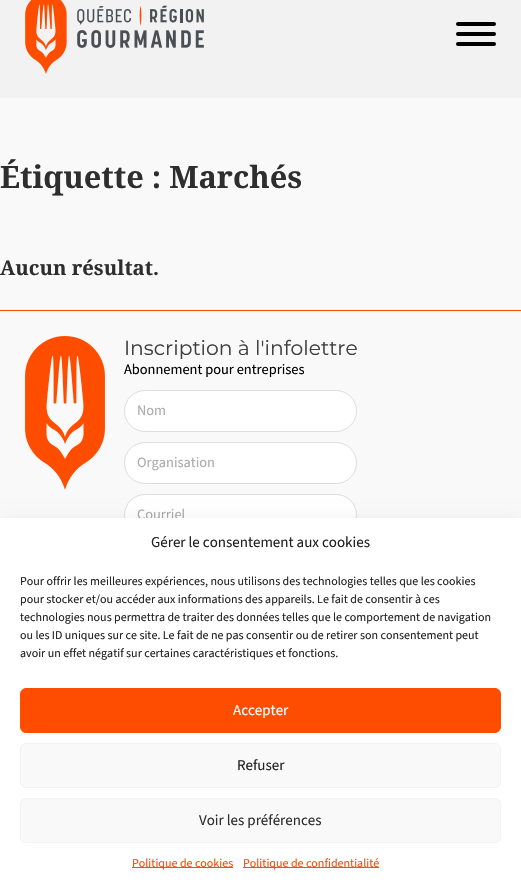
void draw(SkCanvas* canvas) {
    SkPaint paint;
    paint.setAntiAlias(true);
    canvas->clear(0xFFF9F9F9);
    paint.setColor(0xFFF2F2F2);
    canvas->drawRect(SkRect::MakeXYWH(0, 0, 521, 98), paint);
    canvas->drawImageRect(SkImages::DeferredFromEncodedData(SkData::MakeFromFileName("img1.png")), SkRect::MakeXYWH(25, 0, 179, 74), SkSamplingOptions());
    paint.setColor(0xFF000000);
    canvas->drawRoundRect(SkRect::MakeXYWH(456, 32, 40, 4), 2, 2, paint);
    canvas->drawRoundRect(SkRect::MakeXYWH(456, 22, 40, 4), 2, 2, paint);
    canvas->drawRoundRect(SkRect::MakeXYWH(456, 42, 40, 4), 2, 2, paint);
    SkFont font1(fontMgr->matchFamilyStyle("Noto Serif", SkFontStyle::Bold()), 30.75f);
    font1.setSubpixel(true);
    paint.setColor(0xFF2E2E2E);
    canvas->drawString("Étiquette : Marchés", 0, 188, font1, paint);
    SkFont font2(fontMgr->matchFamilyStyle("Noto Serif", SkFontStyle::Bold()), 20.25f);
    font2.setSubpixel(true);
    canvas->drawString("Aucun résultat.", 0, 275, font2, paint);
    paint.setColor(0xFFFF4D00);
    canvas->drawRect(SkRect::MakeXYWH(0, 310, 521, 1), paint);
    canvas->drawImageRect(SkImages::DeferredFromEncodedData(SkData::MakeFromFileName("img2.png")), SkRect::MakeXYWH(25, 336, 80, 154), SkSamplingOptions());
    SkFont font3(fontMgr->matchFamilyStyle("Montserrat", SkFontStyle::Normal()), 20.25f);
    font3.setSubpixel(true);
    paint.setColor(0xFF404040);
    canvas->drawString("Inscription à l'infolettre", 124, 355, font3, paint);
    SkFont font4(fontMgr->matchFamilyStyle("Source Sans 3", SkFontStyle::Normal()), 14.4f);
    font4.setSubpixel(true);
    paint.setColor(0xFF000000);
    canvas->drawString("Abonnement pour entreprises", 124, 374, font4, paint);
    paint.setColor(0xFFFFFFFF);
    canvas->drawRoundRect(SkRect::MakeXYWH(124.5f, 390.5f, 232, 41), 20.5f, 20.5f, paint);
    paint.setStyle(SkPaint::kStroke_Style);
    paint.setStrokeWidth(1);
    paint.setColor(0xFFDDDEDF);
    canvas->drawRoundRect(SkRect::MakeXYWH(124.5f, 390.5f, 232, 41), 20.5f, 20.5f, paint);
    paint.setStyle(SkPaint::kFill_Style);
    paint.setColor(0xFFABABAB);
    canvas->drawString("Nom", 137, 415, font4, paint);
    paint.setColor(0xFFFFFFFF);
    canvas->drawRoundRect(SkRect::MakeXYWH(124.5f, 442.5f, 232, 41), 20.5f, 20.5f, paint);
    paint.setStyle(SkPaint::kStroke_Style);
    paint.setColor(0xFFDDDEDF);
    canvas->drawRoundRect(SkRect::MakeXYWH(124.5f, 442.5f, 232, 41), 20.5f, 20.5f, paint);
    paint.setStyle(SkPaint::kFill_Style);
    paint.setColor(0xFFABABAB);
    canvas->drawString("Organisation", 137, 467, font4, paint);
    paint.setColor(0xFFFFFFFF);
    canvas->drawRoundRect(SkRect::MakeXYWH(124.5f, 494.5f, 232, 41), 20.5f, 20.5f, paint);
    paint.setStyle(SkPaint::kStroke_Style);
    paint.setColor(0xFFDDDEDF);
    canvas->drawRoundRect(SkRect::MakeXYWH(124.5f, 494.5f, 232, 41), 20.5f, 20.5f, paint);
    paint.setStyle(SkPaint::kFill_Style);
    paint.setColor(0xFFABABAB);
    canvas->drawString("Courriel", 137, 519, font4, paint);
    paint.setColor(0x30000000);
    paint.setMaskFilter(SkMaskFilter::MakeBlur(kNormal_SkBlurStyle, 10));
    canvas->drawRect(SkRect::MakeXYWH(0, 528, 521, 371), paint);
    paint.setMaskFilter(nullptr);
    paint.setColor(0xFFFFFFFF);
    canvas->drawRect(SkRect::MakeXYWH(0, 518, 521, 371), paint);
    SkFont font5(fontMgr->matchFamilyStyle("Source Sans 3", SkFontStyle::Normal()), 15);
    font5.setSubpixel(true);
    paint.setColor(0xFF222222);
    canvas->drawString("Gérer le consentement aux cookies", 151, 547, font5, paint);
    SkFont font6(fontMgr->matchFamilyStyle("Source Sans 3", SkFontStyle::Normal()), 12);
    font6.setSubpixel(true);
    canvas->drawString("Pour offrir les meilleures expériences, nous utilisons des technologies telles que les cookies", 20, 585, font6, paint);
    canvas->drawString("pour stocker et/ou accéder aux informations des appareils. Le fait de consentir à ces", 20, 603, font6, paint);
    canvas->drawString("technologies nous permettra de traiter des données telles que le comportement de navigation", 20, 621, font6, paint);
    canvas->drawString("ou les ID uniques sur ce site. Le fait de ne pas consentir ou de retirer son consentement peut", 20, 639, font6, paint);
    canvas->drawString("avoir un effet négatif sur certaines caractéristiques et fonctions.", 20, 657, font6, paint);
    paint.setColor(0xFFFF4D00);
    canvas->drawRoundRect(SkRect::MakeXYWH(20.5f, 688.5f, 480, 44), 5.5f, 5.5f, paint);
    paint.setStyle(SkPaint::kStroke_Style);
    canvas->drawRoundRect(SkRect::MakeXYWH(20.5f, 688.5f, 480, 44), 5.5f, 5.5f, paint);
    paint.setStyle(SkPaint::kFill_Style);
    paint.setColor(0xFFFFFFFF);
    canvas->drawString("Accepter", 233, 715, font5, paint);
    paint.setColor(0xFFF9F9F9);
    canvas->drawRoundRect(SkRect::MakeXYWH(20.5f, 743.5f, 480, 44), 5.5f, 5.5f, paint);
    paint.setStyle(SkPaint::kStroke_Style);
    paint.setColor(0xFFF2F2F2);
    canvas->drawRoundRect(SkRect::MakeXYWH(20.5f, 743.5f, 480, 44), 5.5f, 5.5f, paint);
    paint.setStyle(SkPaint::kFill_Style);
    paint.setColor(0xFF222222);
    canvas->drawString("Refuser", 237, 770, font5, paint);
    paint.setColor(0xFFF9F9F9);
    canvas->drawRoundRect(SkRect::MakeXYWH(20.5f, 798.5f, 480, 44), 5.5f, 5.5f, paint);
    paint.setStyle(SkPaint::kStroke_Style);
    paint.setColor(0xFFF2F2F2);
    canvas->drawRoundRect(SkRect::MakeXYWH(20.5f, 798.5f, 480, 44), 5.5f, 5.5f, paint);
    paint.setStyle(SkPaint::kFill_Style);
    paint.setColor(0xFF2E2E2E);
    canvas->drawString("Voir les préférences", 199, 825, font5, paint);
    paint.setColor(0xFFFF4D00);
    canvas->drawRect(SkRect::MakeXYWH(132, 867, 101, 1), paint);
    canvas->drawString("Politique de cookies", 132, 867, font6, paint);
    canvas->drawRect(SkRect::MakeXYWH(243, 867, 136, 1), paint);
    canvas->drawString("Politique de confidentialité", 243, 867, font6, paint);
}
